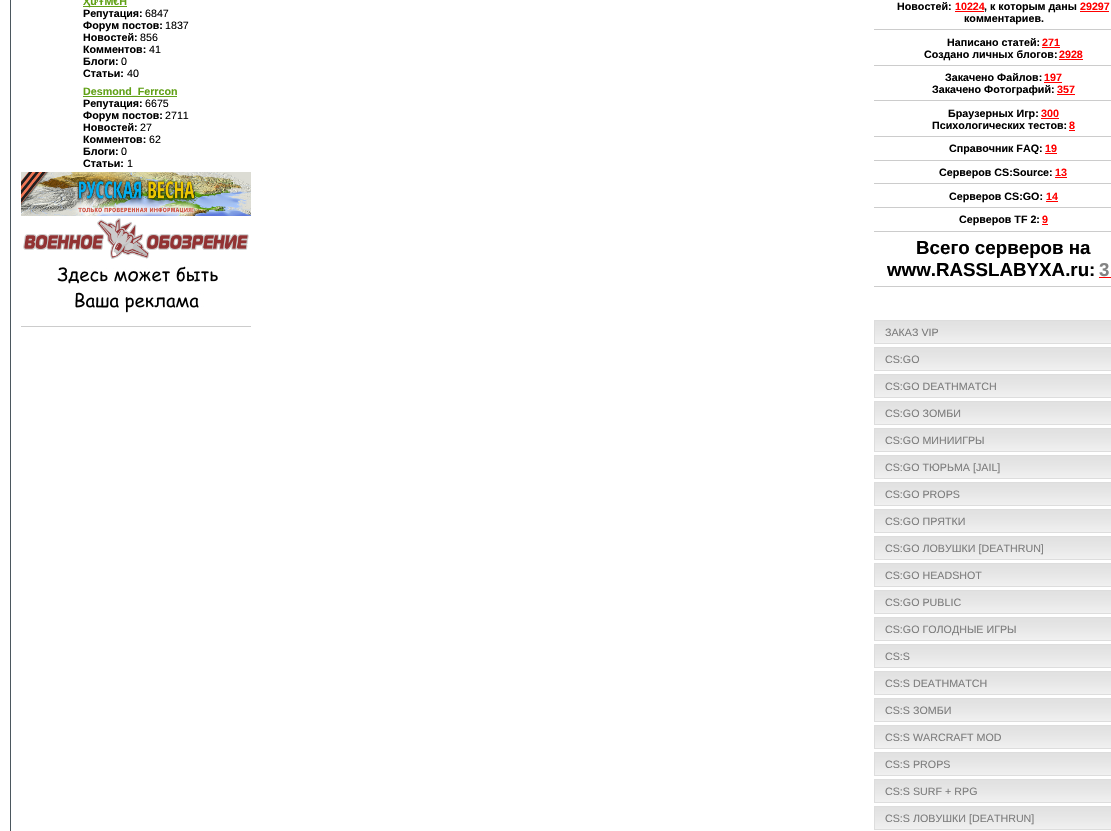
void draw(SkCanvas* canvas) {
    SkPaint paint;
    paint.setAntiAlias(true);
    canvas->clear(0xFFFFFFFF);
    paint.setStyle(SkPaint::kStroke_Style);
    paint.setStrokeWidth(1);
    paint.setColor(0xFF4B575E);
    canvas->drawRect(SkRect::MakeXYWH(10.5f, -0.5f, 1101, 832), paint);
    paint.setStyle(SkPaint::kFill_Style);
    paint.setColor(0xFF61A117);
    canvas->drawRect(SkRect::MakeXYWH(83, 6, 44, 1), paint);
    SkFont font1(fontMgr->matchFamilyStyle("Liberation Sans", SkFontStyle::Bold()), 10.7f);
    font1.setSubpixel(true);
    canvas->drawString("ҲửŦṀ€Ħ", 83, 5, font1, paint);
    paint.setColor(0xFF000000);
    canvas->drawString("Репутация:", 83, 17, font1, paint);
    SkFont font2(fontMgr->matchFamilyStyle("Liberation Sans", SkFontStyle::Normal()), 10.7f);
    font2.setSubpixel(true);
    canvas->drawString("6847", 145, 17, font2, paint);
    canvas->drawString("Форум постов:", 83, 29, font1, paint);
    canvas->drawString("1837", 165, 29, font2, paint);
    canvas->drawString("Новостей:", 83, 41, font1, paint);
    canvas->drawString("856", 140, 41, font2, paint);
    canvas->drawString("Комментов:", 83, 53, font1, paint);
    canvas->drawString("41", 149, 53, font2, paint);
    canvas->drawString("Блоги:", 83, 65, font1, paint);
    canvas->drawString("0", 121, 65, font2, paint);
    canvas->drawString("Статьи:", 83, 77, font1, paint);
    canvas->drawString("40", 127, 77, font2, paint);
    paint.setColor(0xFF61A117);
    canvas->drawRect(SkRect::MakeXYWH(83, 96, 94, 1), paint);
    canvas->drawString("Desmond_Ferrcon", 83, 95, font1, paint);
    paint.setColor(0xFF000000);
    canvas->drawString("Репутация:", 83, 107, font1, paint);
    canvas->drawString("6675", 145, 107, font2, paint);
    canvas->drawString("Форум постов:", 83, 119, font1, paint);
    canvas->drawString("2711", 165, 119, font2, paint);
    canvas->drawString("Новостей:", 83, 131, font1, paint);
    canvas->drawString("27", 140, 131, font2, paint);
    canvas->drawString("Комментов:", 83, 143, font1, paint);
    canvas->drawString("62", 149, 143, font2, paint);
    canvas->drawString("Блоги:", 83, 155, font1, paint);
    canvas->drawString("0", 121, 155, font2, paint);
    canvas->drawString("Статьи:", 83, 167, font1, paint);
    canvas->drawString("1", 127, 167, font2, paint);
    canvas->drawImageRect(SkImages::DeferredFromEncodedData(SkData::MakeFromFileName("img1.png")), SkRect::MakeXYWH(21, 172, 230, 44), SkSamplingOptions());
    canvas->drawImageRect(SkImages::DeferredFromEncodedData(SkData::MakeFromFileName("img2.png")), SkRect::MakeXYWH(23, 218, 226, 41), SkSamplingOptions());
    canvas->drawImageRect(SkImages::DeferredFromEncodedData(SkData::MakeFromFileName("img3.png")), SkRect::MakeXYWH(57, 266, 161, 47), SkSamplingOptions());
    paint.setColor(0xFFCCCCCC);
    canvas->drawRect(SkRect::MakeXYWH(21, 326, 230, 1), paint);
    paint.setColor(0xFF000000);
    canvas->drawString("Новостей:", 897, 10, font1, paint);
    paint.setColor(0xFFFF0000);
    canvas->drawString("10224", 955, 10, font1, paint);
    paint.setColor(0xFF000000);
    canvas->drawString(", к которым даны", 984, 10, font1, paint);
    paint.setColor(0xFFFF0000);
    canvas->drawRect(SkRect::MakeXYWH(955, 11, 29, 1), paint);
    canvas->drawRect(SkRect::MakeXYWH(1080, 11, 29, 1), paint);
    canvas->drawString("29297", 1080, 10, font1, paint);
    paint.setColor(0xFF000000);
    canvas->drawString("комментариев.", 964, 22, font1, paint);
    paint.setColor(0xFFCCCCCC);
    canvas->drawRect(SkRect::MakeXYWH(874, 29, 237, 1), paint);
    paint.setColor(0xFF000000);
    canvas->drawString("Написано статей:", 947, 46, font1, paint);
    paint.setColor(0xFFFF0000);
    canvas->drawString("271", 1042, 46, font1, paint);
    canvas->drawRect(SkRect::MakeXYWH(1042, 47, 18, 1), paint);
    paint.setColor(0xFF000000);
    canvas->drawString("Создано личных блогов:", 924, 58, font1, paint);
    paint.setColor(0xFFFF0000);
    canvas->drawString("2928", 1059, 58, font1, paint);
    canvas->drawRect(SkRect::MakeXYWH(1059, 59, 24, 1), paint);
    paint.setColor(0xFFCCCCCC);
    canvas->drawRect(SkRect::MakeXYWH(874, 65, 237, 1), paint);
    paint.setColor(0xFF000000);
    canvas->drawString("Закачено Файлов:", 945, 81, font1, paint);
    paint.setColor(0xFFFF0000);
    canvas->drawString("197", 1044, 81, font1, paint);
    canvas->drawRect(SkRect::MakeXYWH(1044, 82, 18, 1), paint);
    paint.setColor(0xFF000000);
    canvas->drawString("Закачено Фотографий:", 932, 93, font1, paint);
    paint.setColor(0xFFFF0000);
    canvas->drawString("357", 1057, 93, font1, paint);
    canvas->drawRect(SkRect::MakeXYWH(1057, 94, 18, 1), paint);
    paint.setColor(0xFFCCCCCC);
    canvas->drawRect(SkRect::MakeXYWH(874, 100, 237, 1), paint);
    paint.setColor(0xFF000000);
    canvas->drawString("Браузерных Игр:", 948, 117, font1, paint);
    paint.setColor(0xFFFF0000);
    canvas->drawString("300", 1041, 117, font1, paint);
    canvas->drawRect(SkRect::MakeXYWH(1041, 118, 18, 1), paint);
    paint.setColor(0xFF000000);
    canvas->drawString("Психологических тестов:", 932, 129, font1, paint);
    paint.setColor(0xFFFF0000);
    canvas->drawString("8", 1069, 129, font1, paint);
    canvas->drawRect(SkRect::MakeXYWH(1069, 130, 6, 1), paint);
    paint.setColor(0xFFCCCCCC);
    canvas->drawRect(SkRect::MakeXYWH(874, 136, 237, 1), paint);
    paint.setColor(0xFF000000);
    canvas->drawString("Справочник FAQ:", 949, 152, font1, paint);
    paint.setColor(0xFFFF0000);
    canvas->drawString("19", 1045, 152, font1, paint);
    canvas->drawRect(SkRect::MakeXYWH(1045, 153, 12, 1), paint);
    paint.setColor(0xFFCCCCCC);
    canvas->drawRect(SkRect::MakeXYWH(874, 160, 237, 1), paint);
    paint.setColor(0xFF000000);
    canvas->drawString("Серверов CS:Source:", 939, 176, font1, paint);
    paint.setColor(0xFFFF0000);
    canvas->drawString("13", 1055, 176, font1, paint);
    canvas->drawRect(SkRect::MakeXYWH(1055, 177, 12, 1), paint);
    paint.setColor(0xFFCCCCCC);
    canvas->drawRect(SkRect::MakeXYWH(874, 183, 237, 1), paint);
    paint.setColor(0xFF000000);
    canvas->drawString("Серверов CS:GO:", 949, 200, font1, paint);
    paint.setColor(0xFFFF0000);
    canvas->drawString("14", 1046, 200, font1, paint);
    canvas->drawRect(SkRect::MakeXYWH(1046, 201, 12, 1), paint);
    paint.setColor(0xFFCCCCCC);
    canvas->drawRect(SkRect::MakeXYWH(874, 207, 237, 1), paint);
    paint.setColor(0xFF000000);
    canvas->drawString("Серверов TF 2:", 959, 223, font1, paint);
    paint.setColor(0xFFFF0000);
    canvas->drawString("9", 1042, 223, font1, paint);
    canvas->drawRect(SkRect::MakeXYWH(1042, 224, 6, 1), paint);
    paint.setColor(0xFFCCCCCC);
    canvas->drawRect(SkRect::MakeXYWH(874, 231, 237, 1), paint);
    SkFont font3(fontMgr->matchFamilyStyle("Liberation Sans", SkFontStyle::Bold()), 18.75f);
    font3.setSubpixel(true);
    paint.setColor(0xFF000000);
    canvas->drawString("Всего cерверов на", 916, 254, font3, paint);
    canvas->drawString("www.RASSLABYXA.ru:", 887, 276, font3, paint);
    paint.setColor(0xFF838383);
    canvas->drawString("3", 1099, 276, font3, paint);
    paint.setColor(0xFFFF0000);
    canvas->drawRect(SkRect::MakeXYWH(1099, 277, 12, 1), paint);
    paint.setColor(0xFFCCCCCC);
    canvas->drawRect(SkRect::MakeXYWH(874, 286, 237, 1), paint);
    canvas->drawImageRect(SkImages::DeferredFromEncodedData(SkData::MakeFromFileName("img4.png")), SkRect::MakeXYWH(875, 321, 236, 22), SkSamplingOptions());
    paint.setStyle(SkPaint::kStroke_Style);
    paint.setColor(0xFFDDDDDD);
    canvas->drawRect(SkRect::MakeXYWH(874.5f, 320.5f, 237, 23), paint);
    paint.setStyle(SkPaint::kFill_Style);
    paint.setColor(0xFF7D7D7D);
    canvas->drawString("ЗАКАЗ VIP", 885, 336, font2, paint);
    canvas->drawImageRect(SkImages::DeferredFromEncodedData(SkData::MakeFromFileName("img4.png")), SkRect::MakeXYWH(875, 348, 236, 22), SkSamplingOptions());
    paint.setStyle(SkPaint::kStroke_Style);
    paint.setColor(0xFFDDDDDD);
    canvas->drawRect(SkRect::MakeXYWH(874.5f, 347.5f, 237, 23), paint);
    paint.setStyle(SkPaint::kFill_Style);
    paint.setColor(0xFF7D7D7D);
    canvas->drawString("CS:GO", 885, 363, font2, paint);
    canvas->drawImageRect(SkImages::DeferredFromEncodedData(SkData::MakeFromFileName("img4.png")), SkRect::MakeXYWH(875, 375, 236, 22), SkSamplingOptions());
    paint.setStyle(SkPaint::kStroke_Style);
    paint.setColor(0xFFDDDDDD);
    canvas->drawRect(SkRect::MakeXYWH(874.5f, 374.5f, 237, 23), paint);
    paint.setStyle(SkPaint::kFill_Style);
    paint.setColor(0xFF7D7D7D);
    canvas->drawString("CS:GO DEATHMATCH", 885, 390, font2, paint);
    canvas->drawImageRect(SkImages::DeferredFromEncodedData(SkData::MakeFromFileName("img4.png")), SkRect::MakeXYWH(875, 402, 236, 22), SkSamplingOptions());
    paint.setStyle(SkPaint::kStroke_Style);
    paint.setColor(0xFFDDDDDD);
    canvas->drawRect(SkRect::MakeXYWH(874.5f, 401.5f, 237, 23), paint);
    paint.setStyle(SkPaint::kFill_Style);
    paint.setColor(0xFF7D7D7D);
    canvas->drawString("CS:GO ЗОМБИ", 885, 417, font2, paint);
    canvas->drawImageRect(SkImages::DeferredFromEncodedData(SkData::MakeFromFileName("img4.png")), SkRect::MakeXYWH(875, 429, 236, 22), SkSamplingOptions());
    paint.setStyle(SkPaint::kStroke_Style);
    paint.setColor(0xFFDDDDDD);
    canvas->drawRect(SkRect::MakeXYWH(874.5f, 428.5f, 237, 23), paint);
    paint.setStyle(SkPaint::kFill_Style);
    paint.setColor(0xFF7D7D7D);
    canvas->drawString("CS:GO МИНИИГРЫ", 885, 444, font2, paint);
    canvas->drawImageRect(SkImages::DeferredFromEncodedData(SkData::MakeFromFileName("img4.png")), SkRect::MakeXYWH(875, 456, 236, 22), SkSamplingOptions());
    paint.setStyle(SkPaint::kStroke_Style);
    paint.setColor(0xFFDDDDDD);
    canvas->drawRect(SkRect::MakeXYWH(874.5f, 455.5f, 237, 23), paint);
    paint.setStyle(SkPaint::kFill_Style);
    paint.setColor(0xFF7D7D7D);
    canvas->drawString("CS:GO ТЮРЬМА [JAIL]", 885, 471, font2, paint);
    canvas->drawImageRect(SkImages::DeferredFromEncodedData(SkData::MakeFromFileName("img4.png")), SkRect::MakeXYWH(875, 483, 236, 22), SkSamplingOptions());
    paint.setStyle(SkPaint::kStroke_Style);
    paint.setColor(0xFFDDDDDD);
    canvas->drawRect(SkRect::MakeXYWH(874.5f, 482.5f, 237, 23), paint);
    paint.setStyle(SkPaint::kFill_Style);
    paint.setColor(0xFF7D7D7D);
    canvas->drawString("CS:GO PROPS", 885, 498, font2, paint);
    canvas->drawImageRect(SkImages::DeferredFromEncodedData(SkData::MakeFromFileName("img4.png")), SkRect::MakeXYWH(875, 510, 236, 22), SkSamplingOptions());
    paint.setStyle(SkPaint::kStroke_Style);
    paint.setColor(0xFFDDDDDD);
    canvas->drawRect(SkRect::MakeXYWH(874.5f, 509.5f, 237, 23), paint);
    paint.setStyle(SkPaint::kFill_Style);
    paint.setColor(0xFF7D7D7D);
    canvas->drawString("CS:GO ПРЯТКИ", 885, 525, font2, paint);
    canvas->drawImageRect(SkImages::DeferredFromEncodedData(SkData::MakeFromFileName("img4.png")), SkRect::MakeXYWH(875, 537, 236, 22), SkSamplingOptions());
    paint.setStyle(SkPaint::kStroke_Style);
    paint.setColor(0xFFDDDDDD);
    canvas->drawRect(SkRect::MakeXYWH(874.5f, 536.5f, 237, 23), paint);
    paint.setStyle(SkPaint::kFill_Style);
    paint.setColor(0xFF7D7D7D);
    canvas->drawString("CS:GO ЛОВУШКИ [DEATHRUN]", 885, 552, font2, paint);
    canvas->drawImageRect(SkImages::DeferredFromEncodedData(SkData::MakeFromFileName("img4.png")), SkRect::MakeXYWH(875, 564, 236, 22), SkSamplingOptions());
    paint.setStyle(SkPaint::kStroke_Style);
    paint.setColor(0xFFDDDDDD);
    canvas->drawRect(SkRect::MakeXYWH(874.5f, 563.5f, 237, 23), paint);
    paint.setStyle(SkPaint::kFill_Style);
    paint.setColor(0xFF7D7D7D);
    canvas->drawString("CS:GO HEADSHOT", 885, 579, font2, paint);
    canvas->drawImageRect(SkImages::DeferredFromEncodedData(SkData::MakeFromFileName("img4.png")), SkRect::MakeXYWH(875, 591, 236, 22), SkSamplingOptions());
    paint.setStyle(SkPaint::kStroke_Style);
    paint.setColor(0xFFDDDDDD);
    canvas->drawRect(SkRect::MakeXYWH(874.5f, 590.5f, 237, 23), paint);
    paint.setStyle(SkPaint::kFill_Style);
    paint.setColor(0xFF7D7D7D);
    canvas->drawString("CS:GO PUBLIC", 885, 606, font2, paint);
    canvas->drawImageRect(SkImages::DeferredFromEncodedData(SkData::MakeFromFileName("img4.png")), SkRect::MakeXYWH(875, 618, 236, 22), SkSamplingOptions());
    paint.setStyle(SkPaint::kStroke_Style);
    paint.setColor(0xFFDDDDDD);
    canvas->drawRect(SkRect::MakeXYWH(874.5f, 617.5f, 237, 23), paint);
    paint.setStyle(SkPaint::kFill_Style);
    paint.setColor(0xFF7D7D7D);
    canvas->drawString("CS:GO ГОЛОДНЫЕ ИГРЫ", 885, 633, font2, paint);
    canvas->drawImageRect(SkImages::DeferredFromEncodedData(SkData::MakeFromFileName("img4.png")), SkRect::MakeXYWH(875, 645, 236, 22), SkSamplingOptions());
    paint.setStyle(SkPaint::kStroke_Style);
    paint.setColor(0xFFDDDDDD);
    canvas->drawRect(SkRect::MakeXYWH(874.5f, 644.5f, 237, 23), paint);
    paint.setStyle(SkPaint::kFill_Style);
    paint.setColor(0xFF7D7D7D);
    canvas->drawString("CS:S", 885, 660, font2, paint);
    canvas->drawImageRect(SkImages::DeferredFromEncodedData(SkData::MakeFromFileName("img4.png")), SkRect::MakeXYWH(875, 672, 236, 22), SkSamplingOptions());
    paint.setStyle(SkPaint::kStroke_Style);
    paint.setColor(0xFFDDDDDD);
    canvas->drawRect(SkRect::MakeXYWH(874.5f, 671.5f, 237, 23), paint);
    paint.setStyle(SkPaint::kFill_Style);
    paint.setColor(0xFF7D7D7D);
    canvas->drawString("CS:S DEATHMATCH", 885, 687, font2, paint);
    canvas->drawImageRect(SkImages::DeferredFromEncodedData(SkData::MakeFromFileName("img4.png")), SkRect::MakeXYWH(875, 699, 236, 22), SkSamplingOptions());
    paint.setStyle(SkPaint::kStroke_Style);
    paint.setColor(0xFFDDDDDD);
    canvas->drawRect(SkRect::MakeXYWH(874.5f, 698.5f, 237, 23), paint);
    paint.setStyle(SkPaint::kFill_Style);
    paint.setColor(0xFF7D7D7D);
    canvas->drawString("CS:S ЗОМБИ", 885, 714, font2, paint);
    canvas->drawImageRect(SkImages::DeferredFromEncodedData(SkData::MakeFromFileName("img4.png")), SkRect::MakeXYWH(875, 726, 236, 22), SkSamplingOptions());
    paint.setStyle(SkPaint::kStroke_Style);
    paint.setColor(0xFFDDDDDD);
    canvas->drawRect(SkRect::MakeXYWH(874.5f, 725.5f, 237, 23), paint);
    paint.setStyle(SkPaint::kFill_Style);
    paint.setColor(0xFF7D7D7D);
    canvas->drawString("CS:S WARCRAFT MOD", 885, 741, font2, paint);
    canvas->drawImageRect(SkImages::DeferredFromEncodedData(SkData::MakeFromFileName("img4.png")), SkRect::MakeXYWH(875, 753, 236, 22), SkSamplingOptions());
    paint.setStyle(SkPaint::kStroke_Style);
    paint.setColor(0xFFDDDDDD);
    canvas->drawRect(SkRect::MakeXYWH(874.5f, 752.5f, 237, 23), paint);
    paint.setStyle(SkPaint::kFill_Style);
    paint.setColor(0xFF7D7D7D);
    canvas->drawString("CS:S PROPS", 885, 768, font2, paint);
    canvas->drawImageRect(SkImages::DeferredFromEncodedData(SkData::MakeFromFileName("img4.png")), SkRect::MakeXYWH(875, 780, 236, 22), SkSamplingOptions());
    paint.setStyle(SkPaint::kStroke_Style);
    paint.setColor(0xFFDDDDDD);
    canvas->drawRect(SkRect::MakeXYWH(874.5f, 779.5f, 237, 23), paint);
    paint.setStyle(SkPaint::kFill_Style);
    paint.setColor(0xFF7D7D7D);
    canvas->drawString("CS:S SURF + RPG", 885, 795, font2, paint);
    canvas->drawImageRect(SkImages::DeferredFromEncodedData(SkData::MakeFromFileName("img4.png")), SkRect::MakeXYWH(875, 807, 236, 22), SkSamplingOptions());
    paint.setStyle(SkPaint::kStroke_Style);
    paint.setColor(0xFFDDDDDD);
    canvas->drawRect(SkRect::MakeXYWH(874.5f, 806.5f, 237, 23), paint);
    paint.setStyle(SkPaint::kFill_Style);
    paint.setColor(0xFF7D7D7D);
    canvas->drawString("CS:S ЛОВУШКИ [DEATHRUN]", 885, 822, font2, paint);
}
